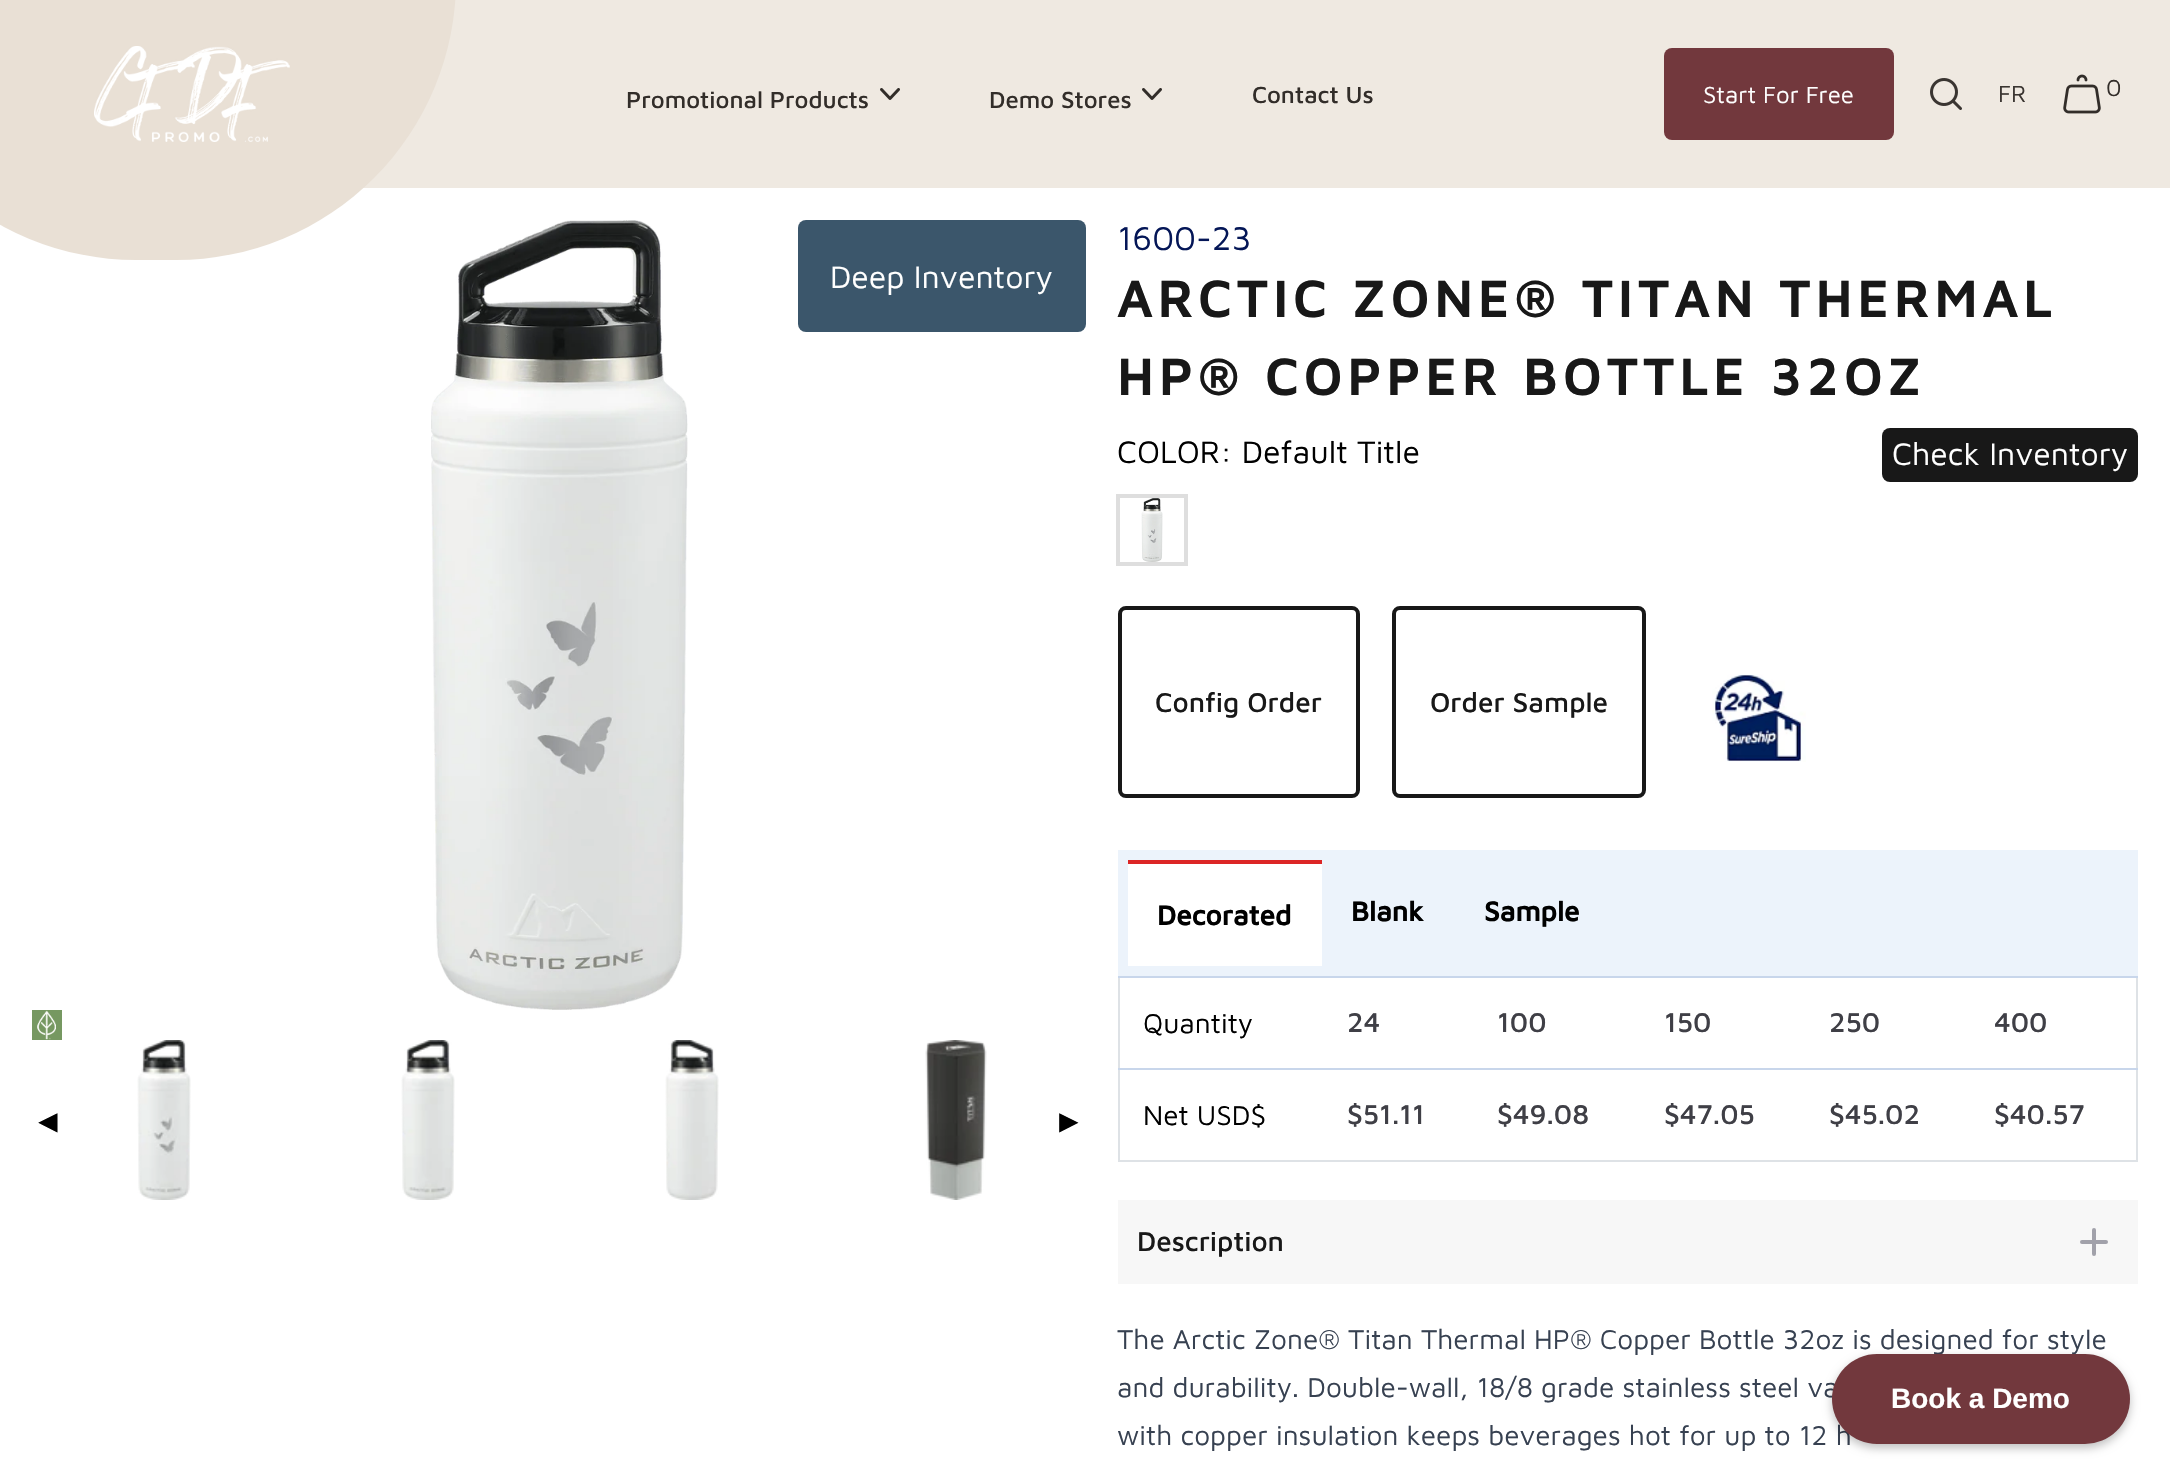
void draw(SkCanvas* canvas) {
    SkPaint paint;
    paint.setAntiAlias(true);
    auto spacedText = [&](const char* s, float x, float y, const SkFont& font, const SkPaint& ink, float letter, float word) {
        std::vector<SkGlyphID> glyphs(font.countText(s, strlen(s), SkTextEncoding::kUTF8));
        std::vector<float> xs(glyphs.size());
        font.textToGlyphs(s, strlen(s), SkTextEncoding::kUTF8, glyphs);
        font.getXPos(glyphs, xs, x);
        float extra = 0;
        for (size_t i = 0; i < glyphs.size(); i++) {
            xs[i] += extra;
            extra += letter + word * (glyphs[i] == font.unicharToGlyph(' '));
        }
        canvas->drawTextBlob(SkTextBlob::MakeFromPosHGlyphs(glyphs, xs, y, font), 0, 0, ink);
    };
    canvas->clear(0xFFFFFFFF);
    paint.setColor(0xFFEFE9E1);
    canvas->drawRect(SkRect::MakeXYWH(351, 0, 1819, 188), paint);
    paint.setColor(0xFFE9E0D5);
    canvas->drawRoundRect(SkRect::MakeXYWH(-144, -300, 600, 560), 300, 300, paint);
    canvas->drawImageRect(SkImages::DeferredFromEncodedData(SkData::MakeFromFileName("img1.png")), SkRect::MakeXYWH(94, 46, 196, 96), SkSamplingOptions());
    SkFont font1(fontMgr->matchFamilyStyle("Maven Pro", SkFontStyle(500, SkFontStyle::kNormal_Width, SkFontStyle::kUpright_Slant)), 24);
    font1.setSubpixel(true);
    paint.setColor(0xFF322D29);
    canvas->drawString("Promotional Products", 626, 108, font1, paint);
    canvas->drawImageRect(SkImages::DeferredFromEncodedData(SkData::MakeFromFileName("img2.png")), SkRect::MakeXYWH(880, 88, 20, 12), SkSamplingOptions());
    canvas->drawString("Demo Stores", 989, 108, font1, paint);
    canvas->drawImageRect(SkImages::DeferredFromEncodedData(SkData::MakeFromFileName("img2.png")), SkRect::MakeXYWH(1142, 88, 20, 12), SkSamplingOptions());
    canvas->drawString("Contact Us", 1252, 103, font1, paint);
    paint.setColor(0xFF72383D);
    canvas->drawRoundRect(SkRect::MakeXYWH(1664, 48, 230, 92), 8, 8, paint);
    SkFont font2(fontMgr->matchFamilyStyle("Maven Pro", SkFontStyle::Normal()), 24);
    font2.setSubpixel(true);
    paint.setColor(0xFFFFFFFF);
    canvas->drawString("Start For Free", 1703, 103, font2, paint);
    canvas->drawImageRect(SkImages::DeferredFromEncodedData(SkData::MakeFromFileName("img3.png")), SkRect::MakeXYWH(1930, 78, 32, 32), SkSamplingOptions());
    paint.setColor(0xFF3A3531);
    canvas->drawString("FR", 1998, 102, font2, paint);
    canvas->drawImageRect(SkImages::DeferredFromEncodedData(SkData::MakeFromFileName("img4.png")), SkRect::MakeXYWH(2063, 74, 38, 40), SkSamplingOptions());
    paint.setColor(0xFF322D29);
    canvas->drawString("0", 2106, 96, font2, paint);
    canvas->drawImageRect(SkImages::DeferredFromEncodedData(SkData::MakeFromFileName("img5.png")), SkRect::MakeXYWH(431, 220, 257, 790), SkSamplingOptions());
    paint.setColor(0xFF3B566B);
    canvas->drawRoundRect(SkRect::MakeXYWH(798, 220, 288, 112), 8, 8, paint);
    SkFont font3(fontMgr->matchFamilyStyle("Maven Pro", SkFontStyle::Normal()), 32);
    font3.setSubpixel(true);
    paint.setColor(0xFFFFFFFF);
    canvas->drawString("Deep Inventory", 830, 288, font3, paint);
    canvas->drawImageRect(SkImages::DeferredFromEncodedData(SkData::MakeFromFileName("img6.png")), SkRect::MakeXYWH(32, 1010, 30, 30), SkSamplingOptions());
    SkFont font4(fontMgr->matchFamilyStyle("Liberation Serif", SkFontStyle::Normal()), 32);
    font4.setSubpixel(true);
    paint.setColor(0xFF000000);
    canvas->drawString("◄", 32, 1132, font4, paint);
    canvas->drawImageRect(SkImages::DeferredFromEncodedData(SkData::MakeFromFileName("img7.png")), SkRect::MakeXYWH(137, 1040, 54, 160), SkSamplingOptions());
    canvas->drawImageRect(SkImages::DeferredFromEncodedData(SkData::MakeFromFileName("img8.png")), SkRect::MakeXYWH(401, 1040, 54, 160), SkSamplingOptions());
    canvas->drawImageRect(SkImages::DeferredFromEncodedData(SkData::MakeFromFileName("img9.png")), SkRect::MakeXYWH(665, 1040, 54, 160), SkSamplingOptions());
    canvas->drawImageRect(SkImages::DeferredFromEncodedData(SkData::MakeFromFileName("img10.png")), SkRect::MakeXYWH(925, 1040, 62, 160), SkSamplingOptions());
    canvas->drawString("►", 1053, 1132, font4, paint);
    SkFont font5(fontMgr->matchFamilyStyle("Maven Pro", SkFontStyle::Normal()), 34);
    font5.setSubpixel(true);
    paint.setColor(0xFF041657);
    canvas->drawString("1600-23", 1117, 250, font5, paint);
    SkFont font6(fontMgr->matchFamilyStyle("Maven Pro", SkFontStyle::Bold()), 52);
    font6.setSubpixel(true);
    paint.setColor(0xFF181818);
    spacedText("ARCTIC ZONE® TITAN THERMAL", 1117, 317, font6, paint, 6, 0);
    spacedText("HP® COPPER BOTTLE 32OZ", 1117, 395, font6, paint, 6, 0);
    canvas->drawRoundRect(SkRect::MakeXYWH(1882, 428, 256, 54), 8, 8, paint);
    paint.setColor(0xFFFFFFFF);
    canvas->drawString("Check Inventory", 1892, 465, font3, paint);
    paint.setColor(0xFF000000);
    canvas->drawString("COLOR: Default Title", 1117, 463, font3, paint);
    canvas->drawImageRect(SkImages::DeferredFromEncodedData(SkData::MakeFromFileName("img11.png")), SkRect::MakeXYWH(1141, 498, 22, 64), SkSamplingOptions());
    paint.setStyle(SkPaint::kStroke_Style);
    paint.setStrokeWidth(4);
    paint.setColor(0xFFDEDEDE);
    canvas->drawRect(SkRect::MakeXYWH(1118, 496, 68, 68), paint);
    paint.setColor(0xFF181818);
    canvas->drawRoundRect(SkRect::MakeXYWH(1120, 608, 238, 188), 6, 6, paint);
    SkFont font7(fontMgr->matchFamilyStyle("Maven Pro", SkFontStyle(500, SkFontStyle::kNormal_Width, SkFontStyle::kUpright_Slant)), 28);
    font7.setSubpixel(true);
    paint.setStyle(SkPaint::kFill_Style);
    canvas->drawString("Config Order", 1155, 712, font7, paint);
    paint.setStyle(SkPaint::kStroke_Style);
    canvas->drawRoundRect(SkRect::MakeXYWH(1394, 608, 250, 188), 6, 6, paint);
    paint.setStyle(SkPaint::kFill_Style);
    canvas->drawString("Order Sample", 1430, 712, font7, paint);
    canvas->drawImageRect(SkImages::DeferredFromEncodedData(SkData::MakeFromFileName("img12.png")), SkRect::MakeXYWH(1712, 674, 94, 88), SkSamplingOptions());
    paint.setColor(0xFFECF3FB);
    canvas->drawRect(SkRect::MakeXYWH(1118, 850, 1020, 126), paint);
    paint.setColor(0xFFFFFFFF);
    canvas->drawRect(SkRect::MakeXYWH(1128, 864, 194, 102), paint);
    paint.setColor(0xFFDC2626);
    canvas->drawRect(SkRect::MakeXYWH(1128, 860, 194, 4), paint);
    SkFont font8(fontMgr->matchFamilyStyle("Maven Pro", SkFontStyle::Bold()), 28);
    font8.setSubpixel(true);
    paint.setColor(0xFF000000);
    canvas->drawString("Decorated", 1157, 925, font8, paint);
    canvas->drawString("Blank", 1351, 921, font8, paint);
    canvas->drawString("Sample", 1484, 921, font8, paint);
    paint.setColor(0xFFDEE2E6);
    canvas->drawRect(SkRect::MakeXYWH(2136, 976, 2, 186), paint);
    canvas->drawRect(SkRect::MakeXYWH(1118, 1160, 1020, 2), paint);
    canvas->drawRect(SkRect::MakeXYWH(1118, 976, 2, 186), paint);
    SkFont font9(fontMgr->matchFamilyStyle("Maven Pro", SkFontStyle::Normal()), 28);
    font9.setSubpixel(true);
    paint.setColor(0xFF000000);
    canvas->drawString("Quantity", 1143, 1033, font9, paint);
    paint.setColor(0xFF3F3F46);
    canvas->drawString("24", 1347, 1032, font7, paint);
    canvas->drawString("100", 1497, 1032, font7, paint);
    canvas->drawString("150", 1664, 1032, font7, paint);
    canvas->drawString("250", 1829, 1032, font7, paint);
    paint.setColor(0xFFC8D6EB);
    canvas->drawRect(SkRect::MakeXYWH(1118, 976, 1020, 2), paint);
    paint.setColor(0xFF3F3F46);
    canvas->drawString("400", 1994, 1032, font7, paint);
    paint.setColor(0xFF000000);
    canvas->drawString("Net USD$", 1143, 1125, font9, paint);
    paint.setColor(0xFF3F3F46);
    canvas->drawString("$51.11", 1347, 1124, font7, paint);
    canvas->drawString("$49.08", 1497, 1124, font7, paint);
    canvas->drawString("$47.05", 1664, 1124, font7, paint);
    canvas->drawString("$45.02", 1829, 1124, font7, paint);
    paint.setColor(0xFFC8D6EB);
    canvas->drawRect(SkRect::MakeXYWH(1118, 1068, 1020, 2), paint);
    paint.setColor(0xFF3F3F46);
    canvas->drawString("$40.57", 1994, 1124, font7, paint);
    paint.setColor(0xFFF7F7F7);
    canvas->drawRect(SkRect::MakeXYWH(1118, 1200, 1020, 84), paint);
    paint.setColor(0xFF181818);
    canvas->drawString("Description", 1137, 1251, font7, paint);
    paint.setStyle(SkPaint::kStroke_Style);
    paint.setStrokeCap(SkPaint::kRound_Cap);
    paint.setStrokeJoin(SkPaint::kRound_Join);
    paint.setColor(0xFFA1A1AA);
    canvas->drawPath(SkPathBuilder().moveTo(2094, 1230).lineTo(2094, 1242).moveTo(2094, 1242).lineTo(2094, 1254).moveTo(2094, 1242).lineTo(2106, 1242).moveTo(2094, 1242).lineTo(2082, 1242).detach(), paint);
    paint.setStyle(SkPaint::kFill_Style);
    paint.setColor(0xFF374151);
    canvas->drawString("The Arctic Zone® Titan Thermal HP® Copper Bottle 32oz is designed for style", 1117, 1349, font9, paint);
    canvas->drawString("and durability. Double-wall, 18/8 grade stainless steel va", 1117, 1397, font9, paint);
    canvas->drawString("with copper insulation keeps beverages hot for up to 12 h", 1117, 1445, font9, paint);
    paint.setColor(0x40000000);
    paint.setMaskFilter(SkMaskFilter::MakeBlur(kNormal_SkBlurStyle, 5));
    canvas->drawRoundRect(SkRect::MakeXYWH(1832, 1358, 298, 90), 45, 45, paint);
    paint.setMaskFilter(nullptr);
    paint.setColor(0xFF72383D);
    canvas->drawRoundRect(SkRect::MakeXYWH(1832, 1354, 298, 90), 45, 45, paint);
    SkFont font10(fontMgr->matchFamilyStyle("Liberation Sans", SkFontStyle::Bold()), 28);
    font10.setSubpixel(true);
    paint.setColor(0xFFFFFFFF);
    canvas->drawString("Book a Demo", 1891, 1408, font10, paint);
}
